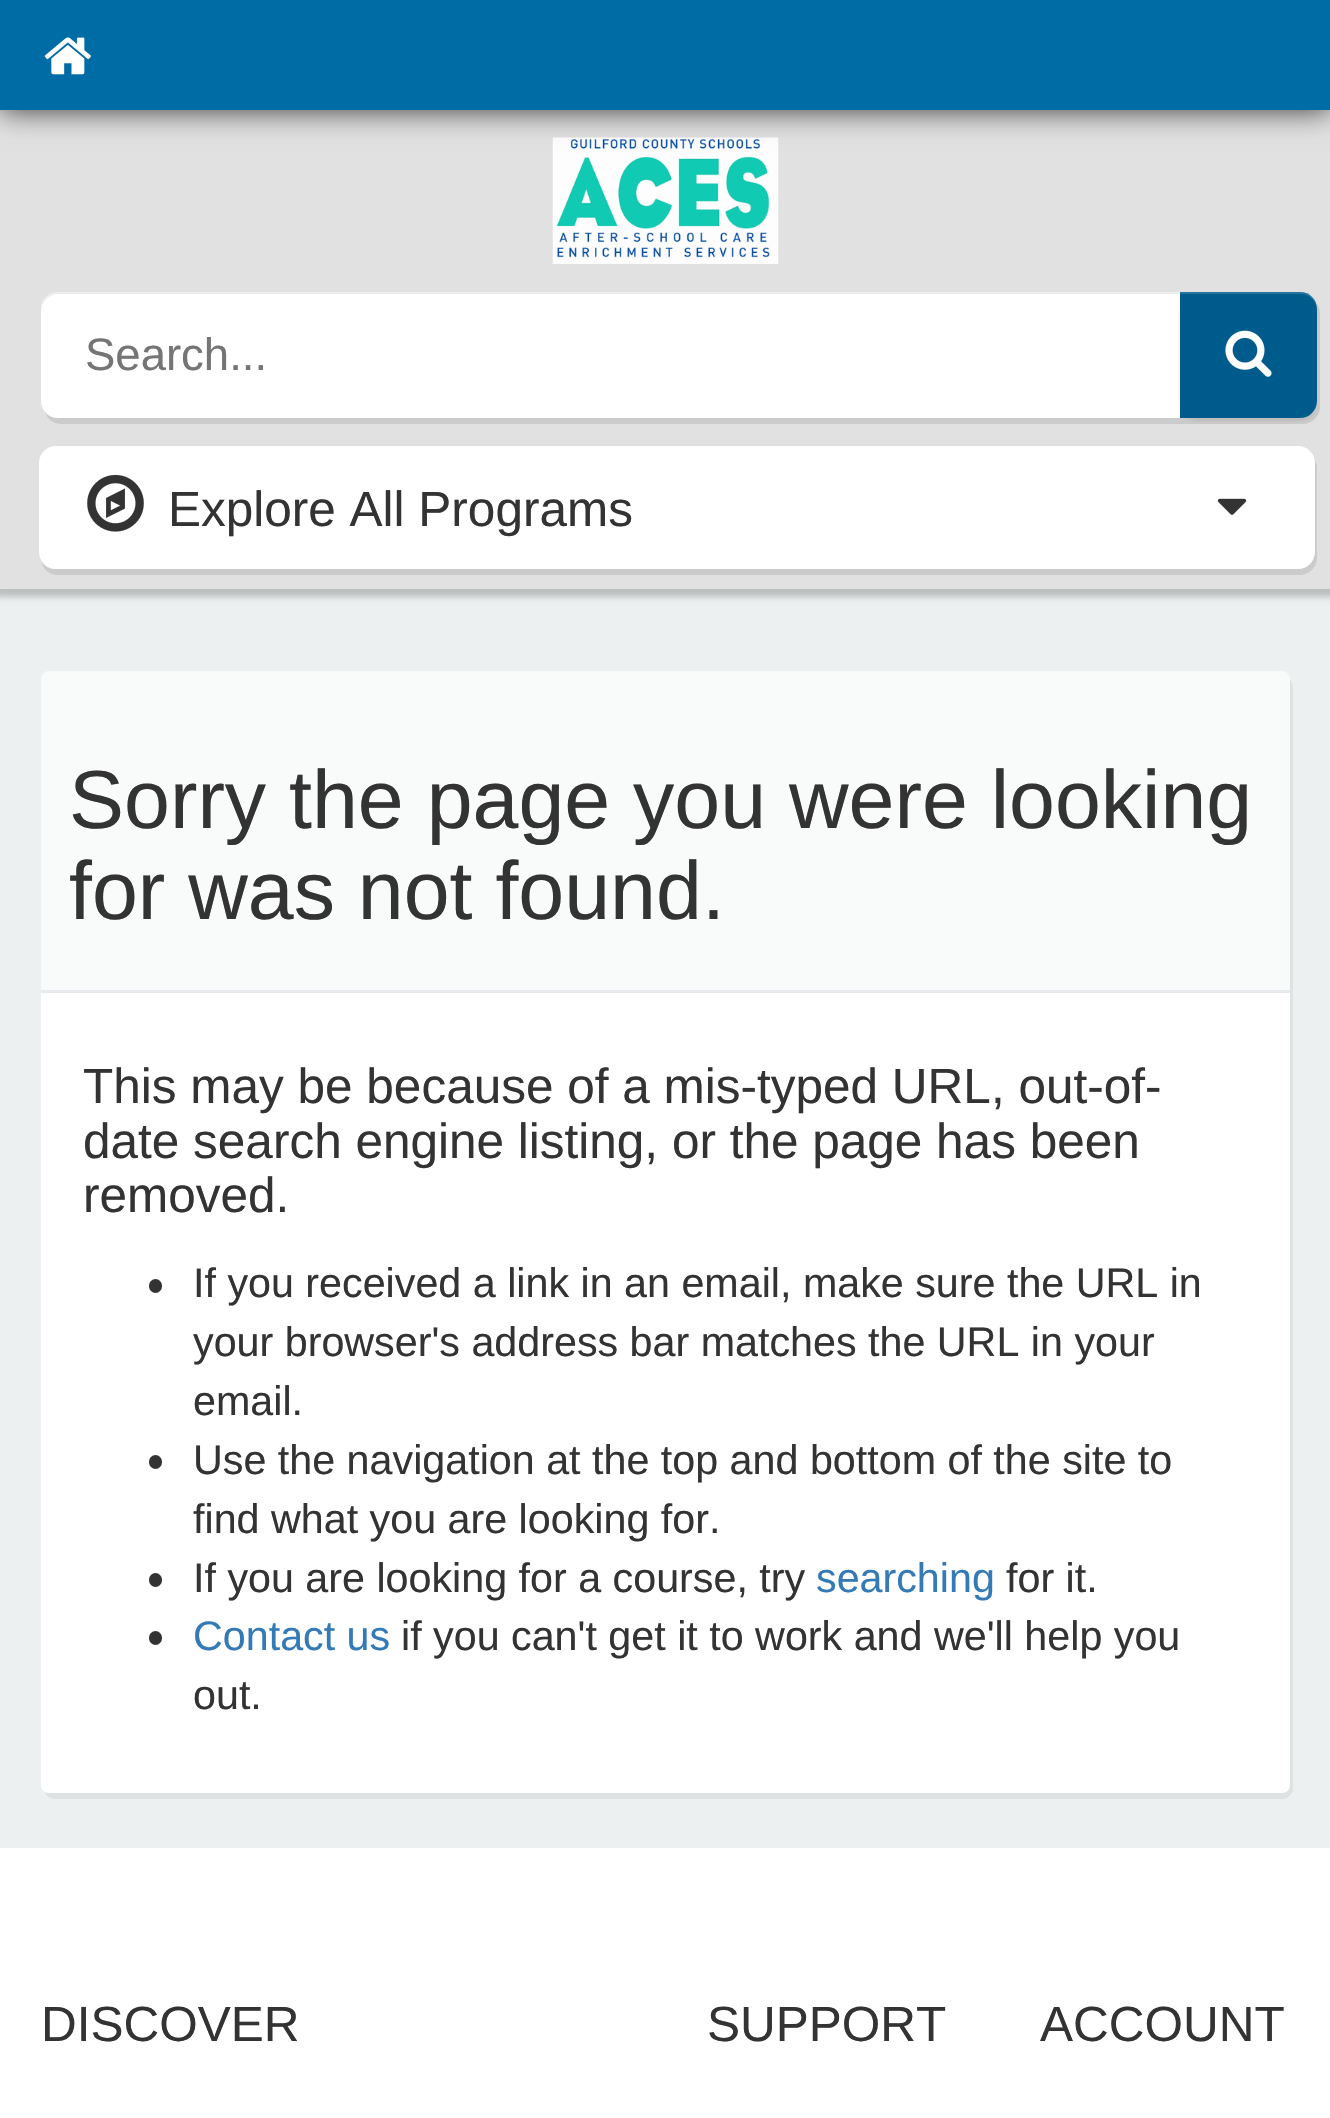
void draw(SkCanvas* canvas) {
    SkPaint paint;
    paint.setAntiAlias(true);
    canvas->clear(0xFFEDF0F0);
    paint.setColor(0x33000000);
    paint.setMaskFilter(SkMaskFilter::MakeBlur(kNormal_SkBlurStyle, 3));
    canvas->drawRect(SkRect::MakeXYWH(-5, 107, 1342, 490), paint);
    paint.setMaskFilter(nullptr);
    paint.setColor(0xFFE1E1E1);
    canvas->drawRect(SkRect::MakeXYWH(0, 110, 1330, 479), paint);
    canvas->drawImageRect(SkImages::DeferredFromEncodedData(SkData::MakeFromFileName("img2.png")), SkRect::MakeXYWH(552, 137, 227, 127), SkSamplingOptions());
    paint.setColor(0xFF333333);
    paint.setMaskFilter(SkMaskFilter::MakeBlur(kNormal_SkBlurStyle, 14));
    canvas->drawRect(SkRect::MakeXYWH(0, 0, 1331, 110), paint);
    paint.setMaskFilter(nullptr);
    paint.setColor(0xFF006CA6);
    canvas->drawRect(SkRect::MakeXYWH(0, 0, 1330, 110), paint);
    canvas->drawImageRect(SkImages::DeferredFromEncodedData(SkData::MakeFromFileName("img1.png")), SkRect::MakeXYWH(44, 37, 47, 38), SkSamplingOptions());
    paint.setColor(0xFFCBCBCB);
    canvas->drawPath(SkPathBuilder().moveTo(45, 411).cubicTo(47, 419, 53, 424, 61, 424).lineTo(1303, 424).cubicTo(1312, 424, 1320, 416, 1320, 407).lineTo(1320, 314).cubicTo(1320, 310, 1319, 307, 1317, 304).lineTo(1317, 308).lineTo(1317, 402).cubicTo(1317, 411, 1310, 418, 1301, 418).lineTo(58, 418).cubicTo(52, 418, 48, 415, 45, 411).close().detach(), paint);
    paint.setColor(0xFFFFFFFF);
    canvas->drawPath(SkPathBuilder().moveTo(58, 292).lineTo(1183, 292).lineTo(1183, 418).lineTo(58, 418).cubicTo(48.5f, 418, 41, 410.5f, 41, 401).lineTo(41, 309).cubicTo(41, 299.5f, 48.5f, 292, 58, 292).close().detach(), paint);
    paint.setColor(0x12000000);
    canvas->drawPath(SkPathBuilder().moveTo(58, 294).lineTo(1182, 294).lineTo(1182, 418).lineTo(1183, 418).lineTo(1183, 292).lineTo(58, 292).cubicTo(47, 292, 41, 301, 41, 311).cubicTo(41, 302, 49, 294, 58, 294).close().detach(), paint);
    SkFont font1(fontMgr->matchFamilyStyle("Liberation Sans", SkFontStyle::Normal()), 45.5f);
    font1.setSubpixel(true);
    paint.setColor(0xFF757575);
    canvas->drawString("Search...", 85, 370, font1, paint);
    paint.setColor(0x12000000);
    paint.setMaskFilter(SkMaskFilter::MakeBlur(kNormal_SkBlurStyle, 1.5f));
    canvas->drawRoundRect(SkRect::MakeXYWH(1180, 294, 137, 127), 17, 17, paint);
    paint.setMaskFilter(nullptr);
    paint.setColor(0xFF005B8D);
    canvas->drawPath(SkPathBuilder().moveTo(1180, 292).lineTo(1300, 292).cubicTo(1309.5f, 292, 1317, 299.5f, 1317, 309).lineTo(1317, 401).cubicTo(1317, 410.5f, 1309.5f, 418, 1300, 418).lineTo(1180, 418).close().detach(), paint);
    paint.setColor(0x26FFFFFF);
    canvas->drawPath(SkPathBuilder().moveTo(1180, 294).lineTo(1301, 294).cubicTo(1310, 294, 1317, 302, 1317, 311).lineTo(1317, 309).cubicTo(1317, 300, 1309, 292, 1300, 292).lineTo(1180, 292).close().detach(), paint);
    canvas->drawImageRect(SkImages::DeferredFromEncodedData(SkData::MakeFromFileName("img3.png")), SkRect::MakeXYWH(1225, 330, 47, 47), SkSamplingOptions());
    paint.setColor(0xFFCBCBCB);
    canvas->drawPath(SkPathBuilder().moveTo(42, 562).cubicTo(43, 570, 50, 575, 58, 575).lineTo(1300, 575).cubicTo(1309, 575, 1317, 567, 1317, 558).lineTo(1317, 468).cubicTo(1317, 465, 1316, 461, 1314, 459).lineTo(1314, 553).cubicTo(1314, 562, 1307, 569, 1298, 569).lineTo(55, 569).cubicTo(49, 569, 45, 567, 42, 562).close().detach(), paint);
    paint.setColor(0xFFFFFFFF);
    canvas->drawRoundRect(SkRect::MakeXYWH(39, 446, 1276, 123), 17, 17, paint);
    canvas->drawImageRect(SkImages::DeferredFromEncodedData(SkData::MakeFromFileName("img4.png")), SkRect::MakeXYWH(87, 474, 57, 58), SkSamplingOptions());
    SkFont font2(fontMgr->matchFamilyStyle("Liberation Sans", SkFontStyle::Normal()), 49.5f);
    font2.setSubpixel(true);
    paint.setColor(0xFF333333);
    canvas->drawString("Explore All Programs", 168, 526, font2, paint);
    canvas->drawImageRect(SkImages::DeferredFromEncodedData(SkData::MakeFromFileName("img5.png")), SkRect::MakeXYWH(1217, 498, 30, 17), SkSamplingOptions());
    paint.setColor(0xFFDFE2E2);
    canvas->drawPath(SkPathBuilder().moveTo(44, 1789).cubicTo(45, 1795, 49, 1799, 55, 1799).lineTo(1282, 1799).cubicTo(1288, 1799, 1293, 1794, 1293, 1788).lineTo(1293, 688).cubicTo(1293, 685, 1292, 682, 1290, 680).lineTo(1290, 1782).cubicTo(1290, 1788, 1285, 1793, 1279, 1793).lineTo(52, 1793).cubicTo(49, 1793, 46, 1792, 44, 1789).close().detach(), paint);
    paint.setColor(0xFFF9FAFA);
    canvas->drawPath(SkPathBuilder().moveTo(49, 671).lineTo(1282, 671).cubicTo(1286.5f, 671, 1290, 674.5f, 1290, 679).lineTo(1290, 993).lineTo(41, 993).lineTo(41, 679).cubicTo(41, 674.5f, 44.5f, 671, 49, 671).close().detach(), paint);
    paint.setColor(0xFFE8EBED);
    canvas->drawRect(SkRect::MakeXYWH(41, 990, 1249, 3), paint);
    SkFont font3(fontMgr->matchFamilyStyle("Liberation Sans", SkFontStyle::Normal()), 82.5f);
    font3.setSubpixel(true);
    paint.setColor(0xFF333333);
    canvas->drawString("Sorry the page you were looking", 69, 828, font3, paint);
    canvas->drawString("for was not found.", 69, 919, font3, paint);
    paint.setColor(0xFFFFFFFF);
    canvas->drawPath(SkPathBuilder().moveTo(41, 993).lineTo(1290, 993).lineTo(1290, 1785).cubicTo(1290, 1789.5f, 1286.5f, 1793, 1282, 1793).lineTo(49, 1793).cubicTo(44.5f, 1793, 41, 1789.5f, 41, 1785).close().detach(), paint);
    paint.setColor(0xFF333333);
    canvas->drawString("This may be because of a mis-typed URL, out-of-", 83, 1103, font2, paint);
    canvas->drawString("date search engine listing, or the page has been", 83, 1158, font2, paint);
    canvas->drawString("removed.", 83, 1212, font2, paint);
    canvas->drawRoundRect(SkRect::MakeXYWH(149, 1279, 13, 14), 6.5f, 6.5f, paint);
    SkFont font4(fontMgr->matchFamilyStyle("Liberation Sans", SkFontStyle::Normal()), 41.25f);
    font4.setSubpixel(true);
    canvas->drawString("If you received a link in an email, make sure the URL in", 193, 1297, font4, paint);
    canvas->drawString("your browser's address bar matches the URL in your", 193, 1356, font4, paint);
    canvas->drawString("email.", 193, 1415, font4, paint);
    canvas->drawRoundRect(SkRect::MakeXYWH(149, 1455, 13, 14), 6.5f, 6.5f, paint);
    canvas->drawString("Use the navigation at the top and bottom of the site to", 193, 1474, font4, paint);
    canvas->drawString("find what you are looking for.", 193, 1533, font4, paint);
    canvas->drawRoundRect(SkRect::MakeXYWH(149, 1573, 13, 14), 6.5f, 6.5f, paint);
    canvas->drawString("If you are looking for a course, try", 193, 1592, font4, paint);
    paint.setColor(0xFF337AB7);
    canvas->drawString("searching", 816, 1592, font4, paint);
    paint.setColor(0xFF333333);
    canvas->drawString("for it.", 1006, 1592, font4, paint);
    canvas->drawRoundRect(SkRect::MakeXYWH(149, 1631, 13, 14), 6.5f, 6.5f, paint);
    paint.setColor(0xFF337AB7);
    canvas->drawString("Contact us", 193, 1650, font4, paint);
    paint.setColor(0xFF333333);
    canvas->drawString("if you can't get it to work and we'll help you", 401, 1650, font4, paint);
    canvas->drawString("out.", 193, 1709, font4, paint);
    paint.setColor(0xFFFFFFFF);
    canvas->drawRect(SkRect::MakeXYWH(0, 1848, 1330, 270), paint);
    paint.setColor(0xFF333333);
    canvas->drawString("DISCOVER", 41, 2041, font2, paint);
    canvas->drawString("SUPPORT", 707, 2041, font2, paint);
    canvas->drawString("ACCOUNT", 1040, 2041, font2, paint);
}
